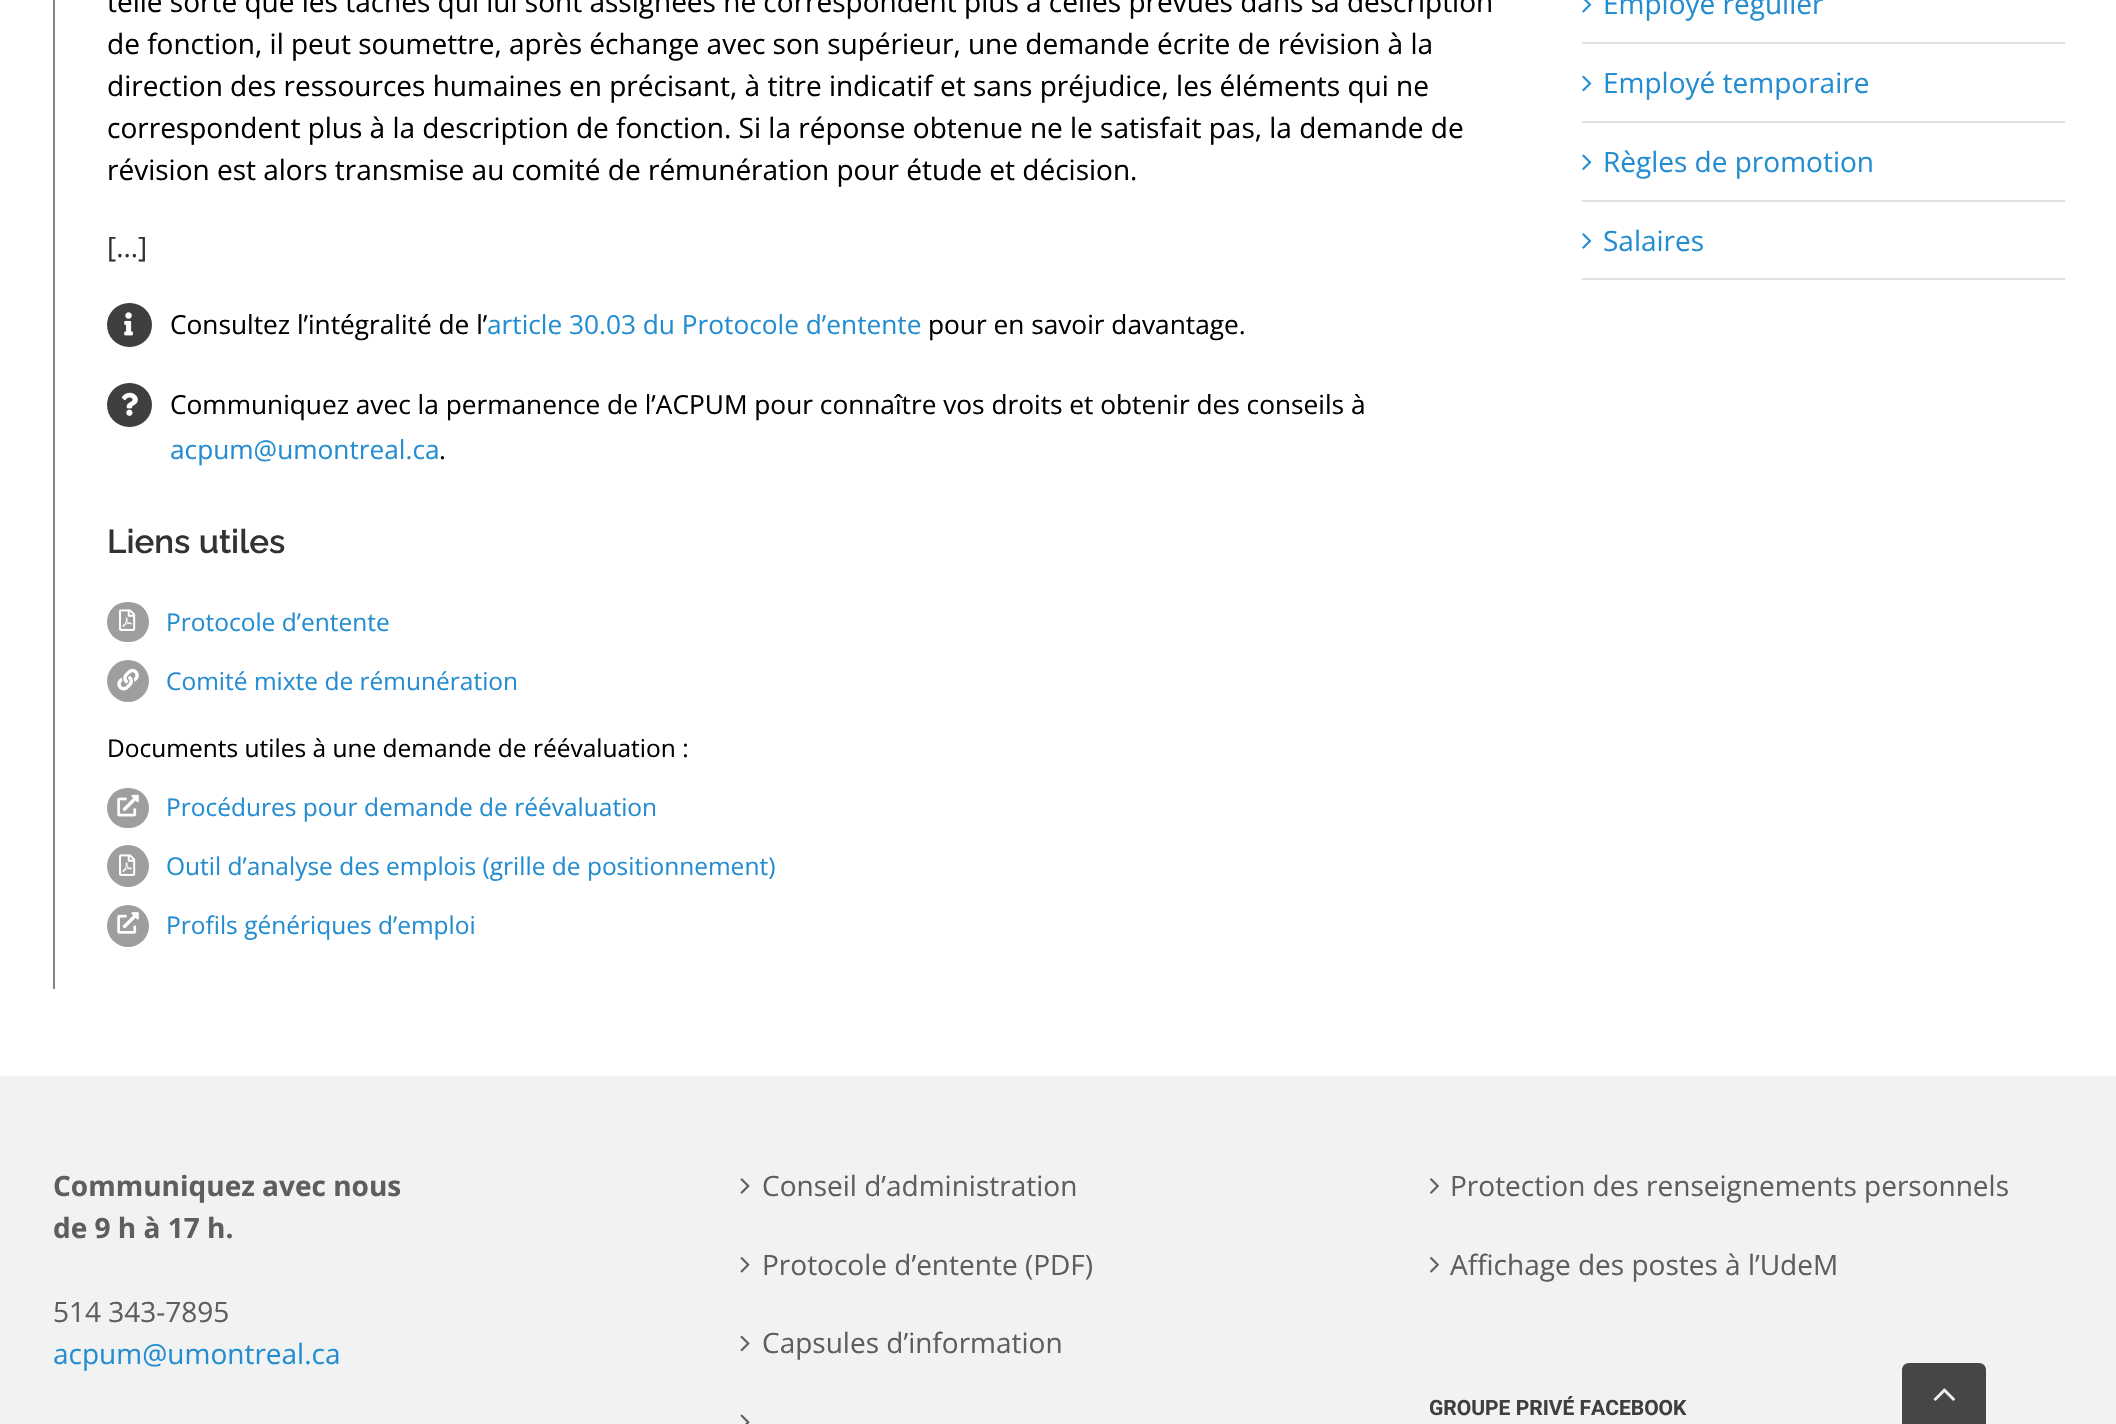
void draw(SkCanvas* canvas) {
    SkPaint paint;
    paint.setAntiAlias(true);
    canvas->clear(0xFFFFFFFF);
    paint.setColor(0xFF858484);
    canvas->drawRect(SkRect::MakeXYWH(53, 0, 2, 989), paint);
    SkFont font1(fontMgr->matchFamilyStyle("Open Sans", SkFontStyle::Normal()), 28);
    font1.setSubpixel(true);
    paint.setColor(0xFF000000);
    canvas->drawString("telle sorte que les tâches qui lui sont assignées ne correspondent plus à celles prévues dans sa description", 107, 12, font1, paint);
    canvas->drawString("de fonction, il peut soumettre, après échange avec son supérieur, une demande écrite de révision à la", 107, 54, font1, paint);
    canvas->drawString("direction des ressources humaines en précisant, à titre indicatif et sans préjudice, les éléments qui ne", 107, 96, font1, paint);
    canvas->drawString("correspondent plus à la description de fonction. Si la réponse obtenue ne le satisfait pas, la demande de", 107, 138, font1, paint);
    canvas->drawString("révision est alors transmise au comité de rémunération pour étude et décision.", 107, 180, font1, paint);
    paint.setColor(0xFF333333);
    canvas->drawString("[…]", 107, 257, font1, paint);
    paint.setColor(0xFF3F3F3F);
    canvas->drawRoundRect(SkRect::MakeXYWH(107, 303, 45, 44), 22, 22, paint);
    canvas->drawImageRect(SkImages::DeferredFromEncodedData(SkData::MakeFromFileName("img1.png")), SkRect::MakeXYWH(124, 312, 9, 24), SkSamplingOptions());
    SkFont font2(fontMgr->matchFamilyStyle("Open Sans", SkFontStyle::Normal()), 26.25f);
    font2.setSubpixel(true);
    paint.setColor(0xFF000000);
    canvas->drawString("Consultez l’intégralité de l’", 170, 334, font2, paint);
    paint.setColor(0xFF248DD1);
    canvas->drawString("article 30.03 du Protocole d’entente", 487, 334, font2, paint);
    paint.setColor(0xFF000000);
    canvas->drawString("pour en savoir davantage.", 928, 334, font2, paint);
    paint.setColor(0xFF3F3F3F);
    canvas->drawRoundRect(SkRect::MakeXYWH(107, 383, 45, 44), 22, 22, paint);
    canvas->drawImageRect(SkImages::DeferredFromEncodedData(SkData::MakeFromFileName("img2.png")), SkRect::MakeXYWH(121, 392, 17, 24), SkSamplingOptions());
    paint.setColor(0xFF000000);
    canvas->drawString("Communiquez avec la permanence de l’ACPUM pour connaître vos droits et obtenir des conseils à", 170, 414, font2, paint);
    paint.setColor(0xFF248DD1);
    canvas->drawString("acpum@umontreal.ca", 170, 459, font2, paint);
    paint.setColor(0xFF000000);
    canvas->drawString(".", 439, 459, font2, paint);
    SkFont font3(fontMgr->matchFamilyStyle("Raleway", SkFontStyle(600, SkFontStyle::kNormal_Width, SkFontStyle::kUpright_Slant)), 33.25f);
    font3.setSubpixel(true);
    paint.setColor(0xFF333333);
    canvas->drawString("Liens utiles", 107, 553, font3, paint);
    paint.setColor(0xFF9E9E9E);
    canvas->drawRoundRect(SkRect::MakeXYWH(107, 602, 42, 40), 20, 20, paint);
    canvas->drawImageRect(SkImages::DeferredFromEncodedData(SkData::MakeFromFileName("img3.png")), SkRect::MakeXYWH(119, 609, 17, 22), SkSamplingOptions());
    SkFont font4(fontMgr->matchFamilyStyle("Open Sans", SkFontStyle::Normal()), 24.5f);
    font4.setSubpixel(true);
    paint.setColor(0xFF248DD1);
    canvas->drawString("Protocole d’entente", 166, 631, font4, paint);
    paint.setColor(0xFF9E9E9E);
    canvas->drawCircle(128, 681, 21, paint);
    canvas->drawImageRect(SkImages::DeferredFromEncodedData(SkData::MakeFromFileName("img4.png")), SkRect::MakeXYWH(117, 668, 22, 23), SkSamplingOptions());
    paint.setColor(0xFF248DD1);
    canvas->drawString("Comité mixte de rémunération", 166, 690, font4, paint);
    paint.setColor(0xFF000000);
    canvas->drawString("Documents utiles à une demande de réévaluation :", 107, 757, font4, paint);
    paint.setColor(0xFF9E9E9E);
    canvas->drawRoundRect(SkRect::MakeXYWH(107, 788, 42, 40), 20, 20, paint);
    canvas->drawImageRect(SkImages::DeferredFromEncodedData(SkData::MakeFromFileName("img5.png")), SkRect::MakeXYWH(117, 794, 22, 23), SkSamplingOptions());
    paint.setColor(0xFF248DD1);
    canvas->drawString("Procédures pour demande de réévaluation", 166, 816, font4, paint);
    paint.setColor(0xFF9E9E9E);
    canvas->drawCircle(128, 866, 21, paint);
    canvas->drawImageRect(SkImages::DeferredFromEncodedData(SkData::MakeFromFileName("img3.png")), SkRect::MakeXYWH(119, 854, 17, 22), SkSamplingOptions());
    paint.setColor(0xFF248DD1);
    canvas->drawString("Outil d’analyse des emplois (grille de positionnement)", 166, 875, font4, paint);
    paint.setColor(0xFF9E9E9E);
    canvas->drawCircle(128, 926, 21, paint);
    canvas->drawImageRect(SkImages::DeferredFromEncodedData(SkData::MakeFromFileName("img6.png")), SkRect::MakeXYWH(117, 912, 22, 22), SkSamplingOptions());
    paint.setColor(0xFF248DD1);
    canvas->drawString("Profils génériques d’emploi", 166, 934, font4, paint);
    paint.setColor(0xFFE0DEDE);
    canvas->drawRect(SkRect::MakeXYWH(1582, 42, 483, 2), paint);
    canvas->drawImageRect(SkImages::DeferredFromEncodedData(SkData::MakeFromFileName("img7.png")), SkRect::MakeXYWH(1582, 0, 10, 13), SkSamplingOptions());
    paint.setColor(0xFF248DD1);
    canvas->drawString("Employé régulier", 1603, 14, font1, paint);
    paint.setColor(0xFFE0DEDE);
    canvas->drawRect(SkRect::MakeXYWH(1582, 121, 483, 2), paint);
    canvas->drawImageRect(SkImages::DeferredFromEncodedData(SkData::MakeFromFileName("img8.png")), SkRect::MakeXYWH(1582, 75, 10, 17), SkSamplingOptions());
    paint.setColor(0xFF248DD1);
    canvas->drawString("Employé temporaire", 1603, 93, font1, paint);
    paint.setColor(0xFFE0DEDE);
    canvas->drawRect(SkRect::MakeXYWH(1582, 200, 483, 2), paint);
    canvas->drawImageRect(SkImages::DeferredFromEncodedData(SkData::MakeFromFileName("img9.png")), SkRect::MakeXYWH(1582, 154, 10, 16), SkSamplingOptions());
    paint.setColor(0xFF248DD1);
    canvas->drawString("Règles de promotion", 1603, 172, font1, paint);
    paint.setColor(0xFFE0DEDE);
    canvas->drawRect(SkRect::MakeXYWH(1582, 278, 483, 2), paint);
    canvas->drawImageRect(SkImages::DeferredFromEncodedData(SkData::MakeFromFileName("img10.png")), SkRect::MakeXYWH(1582, 233, 10, 16), SkSamplingOptions());
    paint.setColor(0xFF248DD1);
    canvas->drawString("Salaires", 1603, 251, font1, paint);
    paint.setColor(0xFFF1F2F2);
    canvas->drawRect(SkRect::MakeXYWH(0, 1076, 2116, 348), paint);
    SkFont font5(fontMgr->matchFamilyStyle("Open Sans", SkFontStyle::Bold()), 28);
    font5.setSubpixel(true);
    paint.setColor(0xFF5E5E5E);
    canvas->drawString("Communiquez avec nous", 53, 1196, font5, paint);
    canvas->drawString("de 9 h à 17 h.", 53, 1238, font5, paint);
    canvas->drawString("514 343-7895", 53, 1322, font1, paint);
    paint.setColor(0xFF248DD1);
    canvas->drawString("acpum@umontreal.ca", 53, 1364, font1, paint);
    canvas->drawImageRect(SkImages::DeferredFromEncodedData(SkData::MakeFromFileName("img11.png")), SkRect::MakeXYWH(740, 1178, 10, 16), SkSamplingOptions());
    paint.setColor(0xFF5E5E5E);
    canvas->drawString("Conseil d’administration", 762, 1196, font1, paint);
    canvas->drawImageRect(SkImages::DeferredFromEncodedData(SkData::MakeFromFileName("img12.png")), SkRect::MakeXYWH(740, 1257, 10, 16), SkSamplingOptions());
    canvas->drawString("Protocole d’entente (PDF)", 762, 1275, font1, paint);
    canvas->drawImageRect(SkImages::DeferredFromEncodedData(SkData::MakeFromFileName("img13.png")), SkRect::MakeXYWH(740, 1335, 10, 17), SkSamplingOptions());
    canvas->drawString("Capsules d’information", 762, 1353, font1, paint);
    canvas->drawImageRect(SkImages::DeferredFromEncodedData(SkData::MakeFromFileName("img14.png")), SkRect::MakeXYWH(740, 1414, 10, 10), SkSamplingOptions());
    canvas->drawImageRect(SkImages::DeferredFromEncodedData(SkData::MakeFromFileName("img15.png")), SkRect::MakeXYWH(1430, 1178, 9, 16), SkSamplingOptions());
    canvas->drawString("Protection des renseignements personnels", 1450, 1196, font1, paint);
    canvas->drawImageRect(SkImages::DeferredFromEncodedData(SkData::MakeFromFileName("img16.png")), SkRect::MakeXYWH(1430, 1257, 9, 16), SkSamplingOptions());
    canvas->drawString("Affichage des postes à l’UdeM", 1450, 1275, font1, paint);
    SkFont font6(fontMgr->matchFamilyStyle("Roboto", SkFontStyle::Bold()), 21);
    font6.setSubpixel(true);
    paint.setColor(0xFF3F3F3F);
    canvas->drawString("GROUPE PRIVÉ FACEBOOK", 1429, 1415, font6, paint);
    paint.setColor(0xFF464646);
    canvas->drawPath(SkPathBuilder().moveTo(1909, 1363).lineTo(1979, 1363).cubicTo(1983, 1363, 1986, 1366, 1986, 1370).lineTo(1986, 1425).lineTo(1902, 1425).lineTo(1902, 1370).cubicTo(1902, 1366, 1905, 1363, 1909, 1363).close().detach(), paint);
    canvas->drawImageRect(SkImages::DeferredFromEncodedData(SkData::MakeFromFileName("img17.png")), SkRect::MakeXYWH(1933, 1388, 22, 13), SkSamplingOptions());
}
